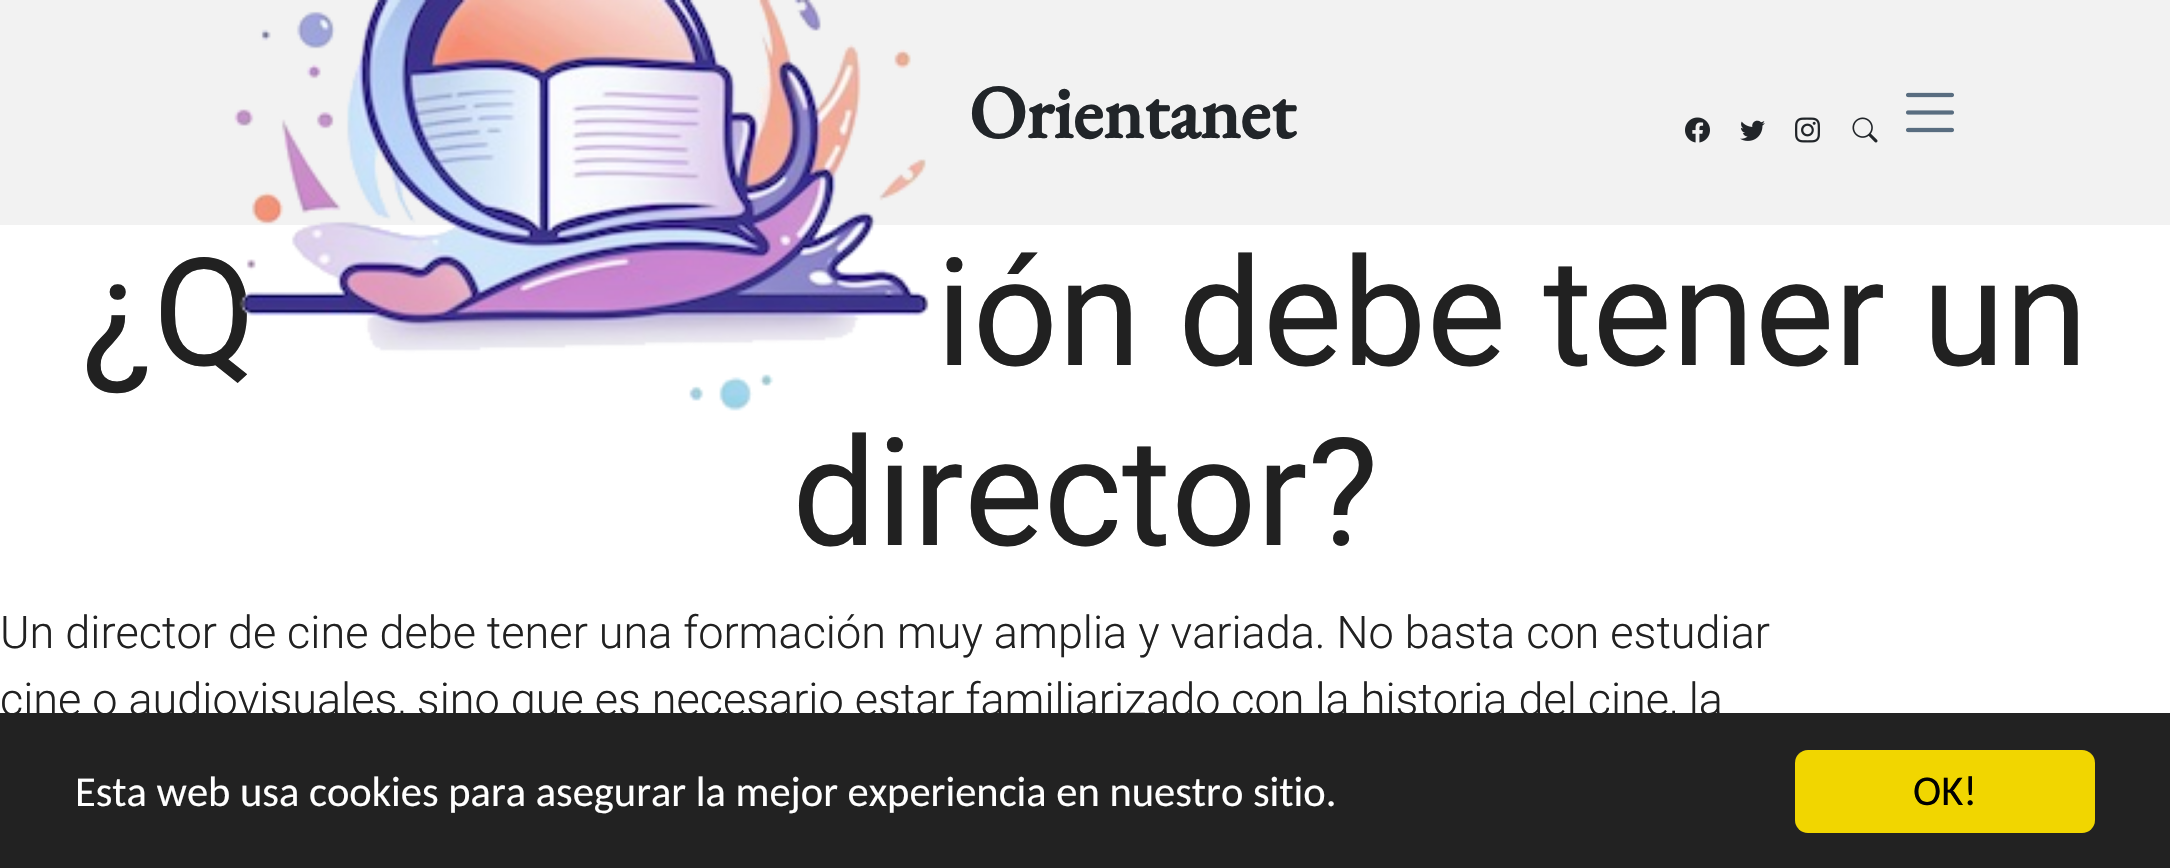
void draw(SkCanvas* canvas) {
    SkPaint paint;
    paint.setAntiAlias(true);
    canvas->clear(0xFFFFFFFF);
    paint.setColor(0xFFF2F2F2);
    canvas->drawRect(SkRect::MakeXYWH(0, 0, 2170, 225), paint);
    SkFont font1(fontMgr->matchFamilyStyle("Roboto", SkFontStyle::Normal()), 150);
    font1.setSubpixel(true);
    paint.setColor(0xFF212121);
    canvas->drawString("¿Q", 82, 365, font1, paint);
    canvas->drawImageRect(SkImages::DeferredFromEncodedData(SkData::MakeFromFileName("img1.png")), SkRect::MakeXYWH(234, 0, 696, 411), SkSamplingOptions());
    SkFont font2(fontMgr->matchFamilyStyle("EB Garamond", SkFontStyle::Bold()), 75);
    font2.setSubpixel(true);
    paint.setColor(0xFF212529);
    canvas->drawString("Orientanet", 969, 138, font2, paint);
    canvas->drawImageRect(SkImages::DeferredFromEncodedData(SkData::MakeFromFileName("img2.png")), SkRect::MakeXYWH(1685, 117, 25, 26), SkSamplingOptions());
    canvas->drawImageRect(SkImages::DeferredFromEncodedData(SkData::MakeFromFileName("img3.png")), SkRect::MakeXYWH(1740, 120, 25, 21), SkSamplingOptions());
    canvas->drawImageRect(SkImages::DeferredFromEncodedData(SkData::MakeFromFileName("img4.png")), SkRect::MakeXYWH(1795, 117, 25, 26), SkSamplingOptions());
    canvas->drawImageRect(SkImages::DeferredFromEncodedData(SkData::MakeFromFileName("img5.png")), SkRect::MakeXYWH(1852, 117, 26, 26), SkSamplingOptions());
    canvas->drawImageRect(SkImages::DeferredFromEncodedData(SkData::MakeFromFileName("img6.png")), SkRect::MakeXYWH(1906, 92, 48, 41), SkSamplingOptions());
    paint.setColor(0xFF212121);
    canvas->drawString("ión debe tener un", 936, 365, font1, paint);
    canvas->drawString("director?", 792, 545, font1, paint);
    SkFont font3(fontMgr->matchFamilyStyle("Roboto", SkFontStyle(300, SkFontStyle::kNormal_Width, SkFontStyle::kUpright_Slant)), 45);
    font3.setSubpixel(true);
    canvas->drawString("Un director de cine debe tener una formación muy amplia y variada. No basta con estudiar", 0, 648, font3, paint);
    canvas->drawString("cine o audiovisuales, sino que es necesario estar familiarizado con la historia del cine, la", 0, 715, font3, paint);
    paint.setColor(0xFF222222);
    canvas->drawRect(SkRect::MakeXYWH(0, 713, 2170, 155), paint);
    SkFont font4(fontMgr->matchFamilyStyle("Carlito", SkFontStyle::Normal()), 42.5f);
    font4.setSubpixel(true);
    paint.setColor(0xFFFFFFFF);
    canvas->drawString("Esta web usa cookies para asegurar la mejor experiencia en nuestro sitio.", 75, 806, font4, paint);
    paint.setColor(0xFFF1D600);
    canvas->drawRoundRect(SkRect::MakeXYWH(1795, 750, 300, 83), 13, 13, paint);
    paint.setColor(0xFF000000);
    canvas->drawString("OK!", 1913, 805, font4, paint);
}
